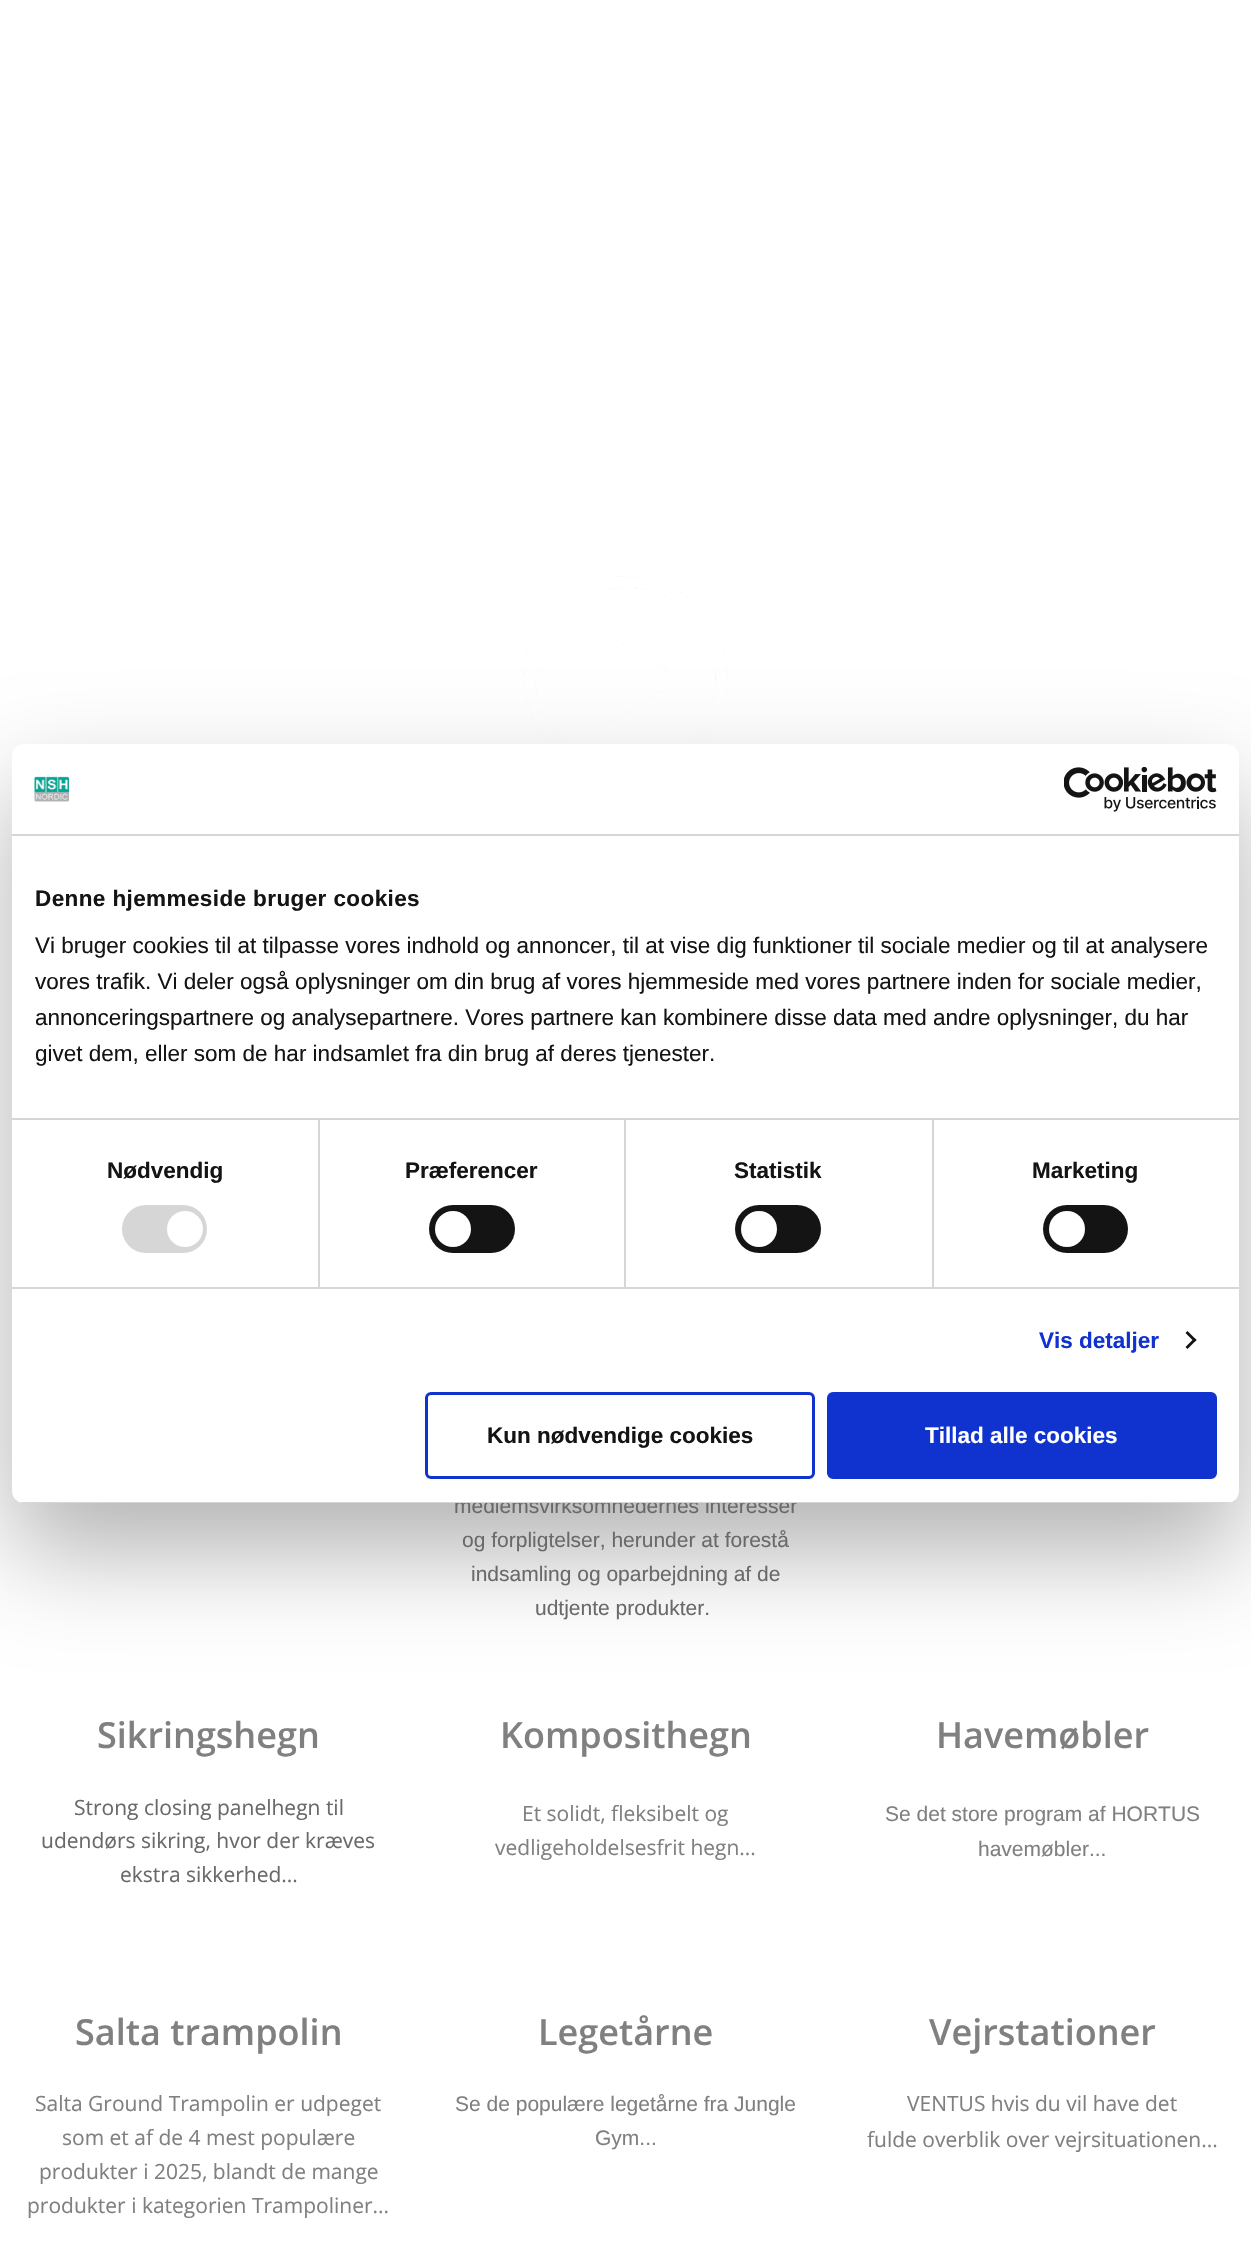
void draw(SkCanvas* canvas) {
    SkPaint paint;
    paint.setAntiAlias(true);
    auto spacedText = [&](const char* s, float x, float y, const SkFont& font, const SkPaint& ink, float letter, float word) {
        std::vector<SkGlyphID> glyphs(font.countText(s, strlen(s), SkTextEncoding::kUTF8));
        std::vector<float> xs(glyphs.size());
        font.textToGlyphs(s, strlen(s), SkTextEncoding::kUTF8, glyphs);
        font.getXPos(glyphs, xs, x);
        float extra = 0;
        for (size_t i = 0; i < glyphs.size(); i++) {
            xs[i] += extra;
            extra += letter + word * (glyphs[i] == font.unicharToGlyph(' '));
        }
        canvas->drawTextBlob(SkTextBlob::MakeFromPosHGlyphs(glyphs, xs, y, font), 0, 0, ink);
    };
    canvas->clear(0xFFFFFFFF);
    canvas->drawImageRect(SkImages::DeferredFromEncodedData(SkData::MakeFromFileName("img3.png")), SkRect::MakeXYWH(524, 576, 204, 168), SkSamplingOptions());
    paint.setColor(0x4D000000);
    paint.setMaskFilter(SkMaskFilter::MakeBlur(kNormal_SkBlurStyle, 51));
    canvas->drawRoundRect(SkRect::MakeXYWH(12, 792, 1227, 759), 12, 12, paint);
    paint.setMaskFilter(nullptr);
    SkFont font1(fontMgr->matchFamilyStyle("Liberation Sans", SkFontStyle::Normal()), 21);
    font1.setSubpixel(true);
    paint.setColor(0xFF696969);
    canvas->drawString("medlemsvirksomhedernes interesser", 454, 1513, font1, paint);
    paint.setColor(0xFFFFFFFF);
    canvas->drawRoundRect(SkRect::MakeXYWH(12, 744, 1227, 759), 12, 12, paint);
    paint.setColor(0xFFD6D6D6);
    canvas->drawRect(SkRect::MakeXYWH(12, 834, 1227, 2), paint);
    canvas->drawImageRect(SkImages::DeferredFromEncodedData(SkData::MakeFromFileName("img1.png")), SkRect::MakeXYWH(34, 776, 35, 26), SkSamplingOptions());
    canvas->drawImageRect(SkImages::DeferredFromEncodedData(SkData::MakeFromFileName("img2.png")), SkRect::MakeXYWH(1064, 767, 153, 45), SkSamplingOptions());
    canvas->drawRect(SkRect::MakeXYWH(318, 1119, 2, 168), paint);
    canvas->drawRect(SkRect::MakeXYWH(624, 1119, 2, 168), paint);
    canvas->drawRect(SkRect::MakeXYWH(932, 1119, 2, 168), paint);
    canvas->drawRect(SkRect::MakeXYWH(12, 1118, 1227, 2), paint);
    SkFont font2(fontMgr->matchFamilyStyle("Liberation Sans", SkFontStyle::Bold()), 22.5f);
    font2.setSubpixel(true);
    paint.setColor(0xFF141414);
    spacedText("Denne hjemmeside bruger cookies", 35, 906, font2, paint, 0.4f, 0);
    SkFont font3(fontMgr->matchFamilyStyle("Liberation Sans", SkFontStyle::Normal()), 22.5f);
    font3.setSubpixel(true);
    canvas->drawString("Vi bruger cookies til at tilpasse vores indhold og annoncer, til at vise dig funktioner til sociale medier og til at analysere", 35, 953, font3, paint);
    canvas->drawString("vores trafik. Vi deler også oplysninger om din brug af vores hjemmeside med vores partnere inden for sociale medier,", 35, 989, font3, paint);
    canvas->drawString("annonceringspartnere og analysepartnere. Vores partnere kan kombinere disse data med andre oplysninger, du har", 35, 1025, font3, paint);
    canvas->drawString("givet dem, eller som de har indsamlet fra din brug af deres tjenester.", 35, 1061, font3, paint);
    paint.setColor(0xFFD6D6D6);
    canvas->drawRect(SkRect::MakeXYWH(12, 1287, 1227, 2), paint);
    paint.setColor(0xFF141414);
    canvas->drawString("Nødvendig", 107, 1178, font2, paint);
    paint.setColor(0xFFD6D6D6);
    canvas->drawRoundRect(SkRect::MakeXYWH(122, 1205, 85, 48), 24, 24, paint);
    paint.setColor(0xFFFFFFFF);
    canvas->drawCircle(185, 1229, 18, paint);
    paint.setColor(0xFF141414);
    canvas->drawString("Præferencer", 405, 1178, font2, paint);
    canvas->drawRoundRect(SkRect::MakeXYWH(429, 1205, 86, 48), 24, 24, paint);
    paint.setColor(0xFFFFFFFF);
    canvas->drawCircle(453, 1229, 18, paint);
    paint.setColor(0xFF141414);
    canvas->drawString("Statistik", 734, 1178, font2, paint);
    canvas->drawRoundRect(SkRect::MakeXYWH(735, 1205, 86, 48), 24, 24, paint);
    paint.setColor(0xFFFFFFFF);
    canvas->drawCircle(759, 1229, 18, paint);
    paint.setColor(0xFF141414);
    canvas->drawString("Marketing", 1032, 1178, font2, paint);
    canvas->drawRoundRect(SkRect::MakeXYWH(1043, 1205, 85, 48), 24, 24, paint);
    paint.setColor(0xFFFFFFFF);
    canvas->drawCircle(1067, 1229, 18, paint);
    paint.setColor(0xFF1032CF);
    canvas->drawString("Vis detaljer", 1039, 1348, font2, paint);
    paint.setColor(0xFF141414);
    canvas->drawPath(SkPathBuilder().moveTo(1187.5f, 1331).lineTo(1196.5f, 1340).lineTo(1194.5f, 1342).lineTo(1185.5f, 1333).close().detach(), paint);
    canvas->drawPath(SkPathBuilder().moveTo(1194.5f, 1338).lineTo(1196.5f, 1340).lineTo(1187.5f, 1349).lineTo(1185.5f, 1347).close().detach(), paint);
    canvas->save();
    canvas->clipPath(SkPathBuilder().moveTo(24, 744).lineTo(1227, 744).cubicTo(1233.5f, 744, 1239, 749.5f, 1239, 756).lineTo(1239, 1491).cubicTo(1239, 1497.5f, 1233.5f, 1503, 1227, 1503).lineTo(24, 1503).cubicTo(17.5f, 1503, 12, 1497.5f, 12, 1491).lineTo(12, 756).cubicTo(12, 749.5f, 17.5f, 744, 24, 744).close().detach(), true);
    paint.setColor(0xFFD6D6D6);
    canvas->drawRect(SkRect::MakeXYWH(12, 1502, 1227, 1), paint);
    canvas->restore();
    paint.setStyle(SkPaint::kStroke_Style);
    paint.setStrokeWidth(3);
    paint.setColor(0xFF1032CF);
    canvas->drawRoundRect(SkRect::MakeXYWH(426.5f, 1393.5f, 387, 84), 4.5f, 4.5f, paint);
    paint.setStyle(SkPaint::kFill_Style);
    paint.setColor(0xFF141414);
    canvas->drawString("Kun nødvendige cookies", 487, 1443, font2, paint);
    paint.setColor(0xFF1032CF);
    canvas->drawRoundRect(SkRect::MakeXYWH(828.5f, 1393.5f, 387, 84), 4.5f, 4.5f, paint);
    paint.setStyle(SkPaint::kStroke_Style);
    canvas->drawRoundRect(SkRect::MakeXYWH(828.5f, 1393.5f, 387, 84), 4.5f, 4.5f, paint);
    paint.setStyle(SkPaint::kFill_Style);
    paint.setColor(0xFFFFFFFF);
    canvas->drawString("Tillad alle cookies", 925, 1443, font2, paint);
    paint.setColor(0xFF696969);
    canvas->drawString("og forpligtelser, herunder at forestå", 462, 1547, font1, paint);
    canvas->drawString("indsamling og oparbejdning af de", 471, 1581, font1, paint);
    canvas->drawString("udtjente produkter.", 535, 1615, font1, paint);
    SkFont font4(fontMgr->matchFamilyStyle("Open Sans", SkFontStyle(600, SkFontStyle::kNormal_Width, SkFontStyle::kUpright_Slant)), 36);
    font4.setSubpixel(true);
    paint.setColor(0xFF808080);
    canvas->drawString("Sikringshegn", 97, 1748, font4, paint);
    SkFont font5(fontMgr->matchFamilyStyle("Open Sans", SkFontStyle::Normal()), 21);
    font5.setSubpixel(true);
    paint.setColor(0xFF696969);
    canvas->drawString("Strong closing panelhegn til", 74, 1815, font5, paint);
    canvas->drawString("udendørs sikring, hvor der kræves", 41, 1848, font5, paint);
    canvas->drawString("ekstra sikkerhed...", 120, 1882, font5, paint);
    paint.setColor(0xFF808080);
    canvas->drawString("Komposithegn", 500, 1748, font4, paint);
    canvas->drawString("Et solidt, fleksibelt og", 522, 1821, font5, paint);
    canvas->drawString("vedligeholdelsesfrit hegn...", 495, 1855, font5, paint);
    canvas->drawString("Havemøbler", 936, 1748, font4, paint);
    canvas->drawString("Se det store program af HORTUS", 885, 1821, font1, paint);
    canvas->drawString("havemøbler...", 978, 1856, font1, paint);
    canvas->drawString("Salta trampolin", 75, 2045, font4, paint);
    canvas->drawString("Salta Ground Trampolin er udpeget", 35, 2111, font5, paint);
    canvas->drawString("som et af de 4 mest populære", 62, 2145, font5, paint);
    canvas->drawString("produkter i 2025, blandt de mange", 39, 2179, font5, paint);
    canvas->drawString("produkter i kategorien Trampoliner...", 27, 2213, font5, paint);
    canvas->drawString("Legetårne", 538, 2045, font4, paint);
    canvas->drawString("Se de populære legetårne fra Jungle", 455, 2111, font1, paint);
    canvas->drawString("Gym...", 595, 2145, font1, paint);
    canvas->drawString("Vejrstationer", 929, 2045, font4, paint);
    canvas->drawString("VENTUS hvis du vil have det", 907, 2111, font5, paint);
    canvas->drawString("fulde overblik over vejrsituationen...", 867, 2147, font5, paint);
}
